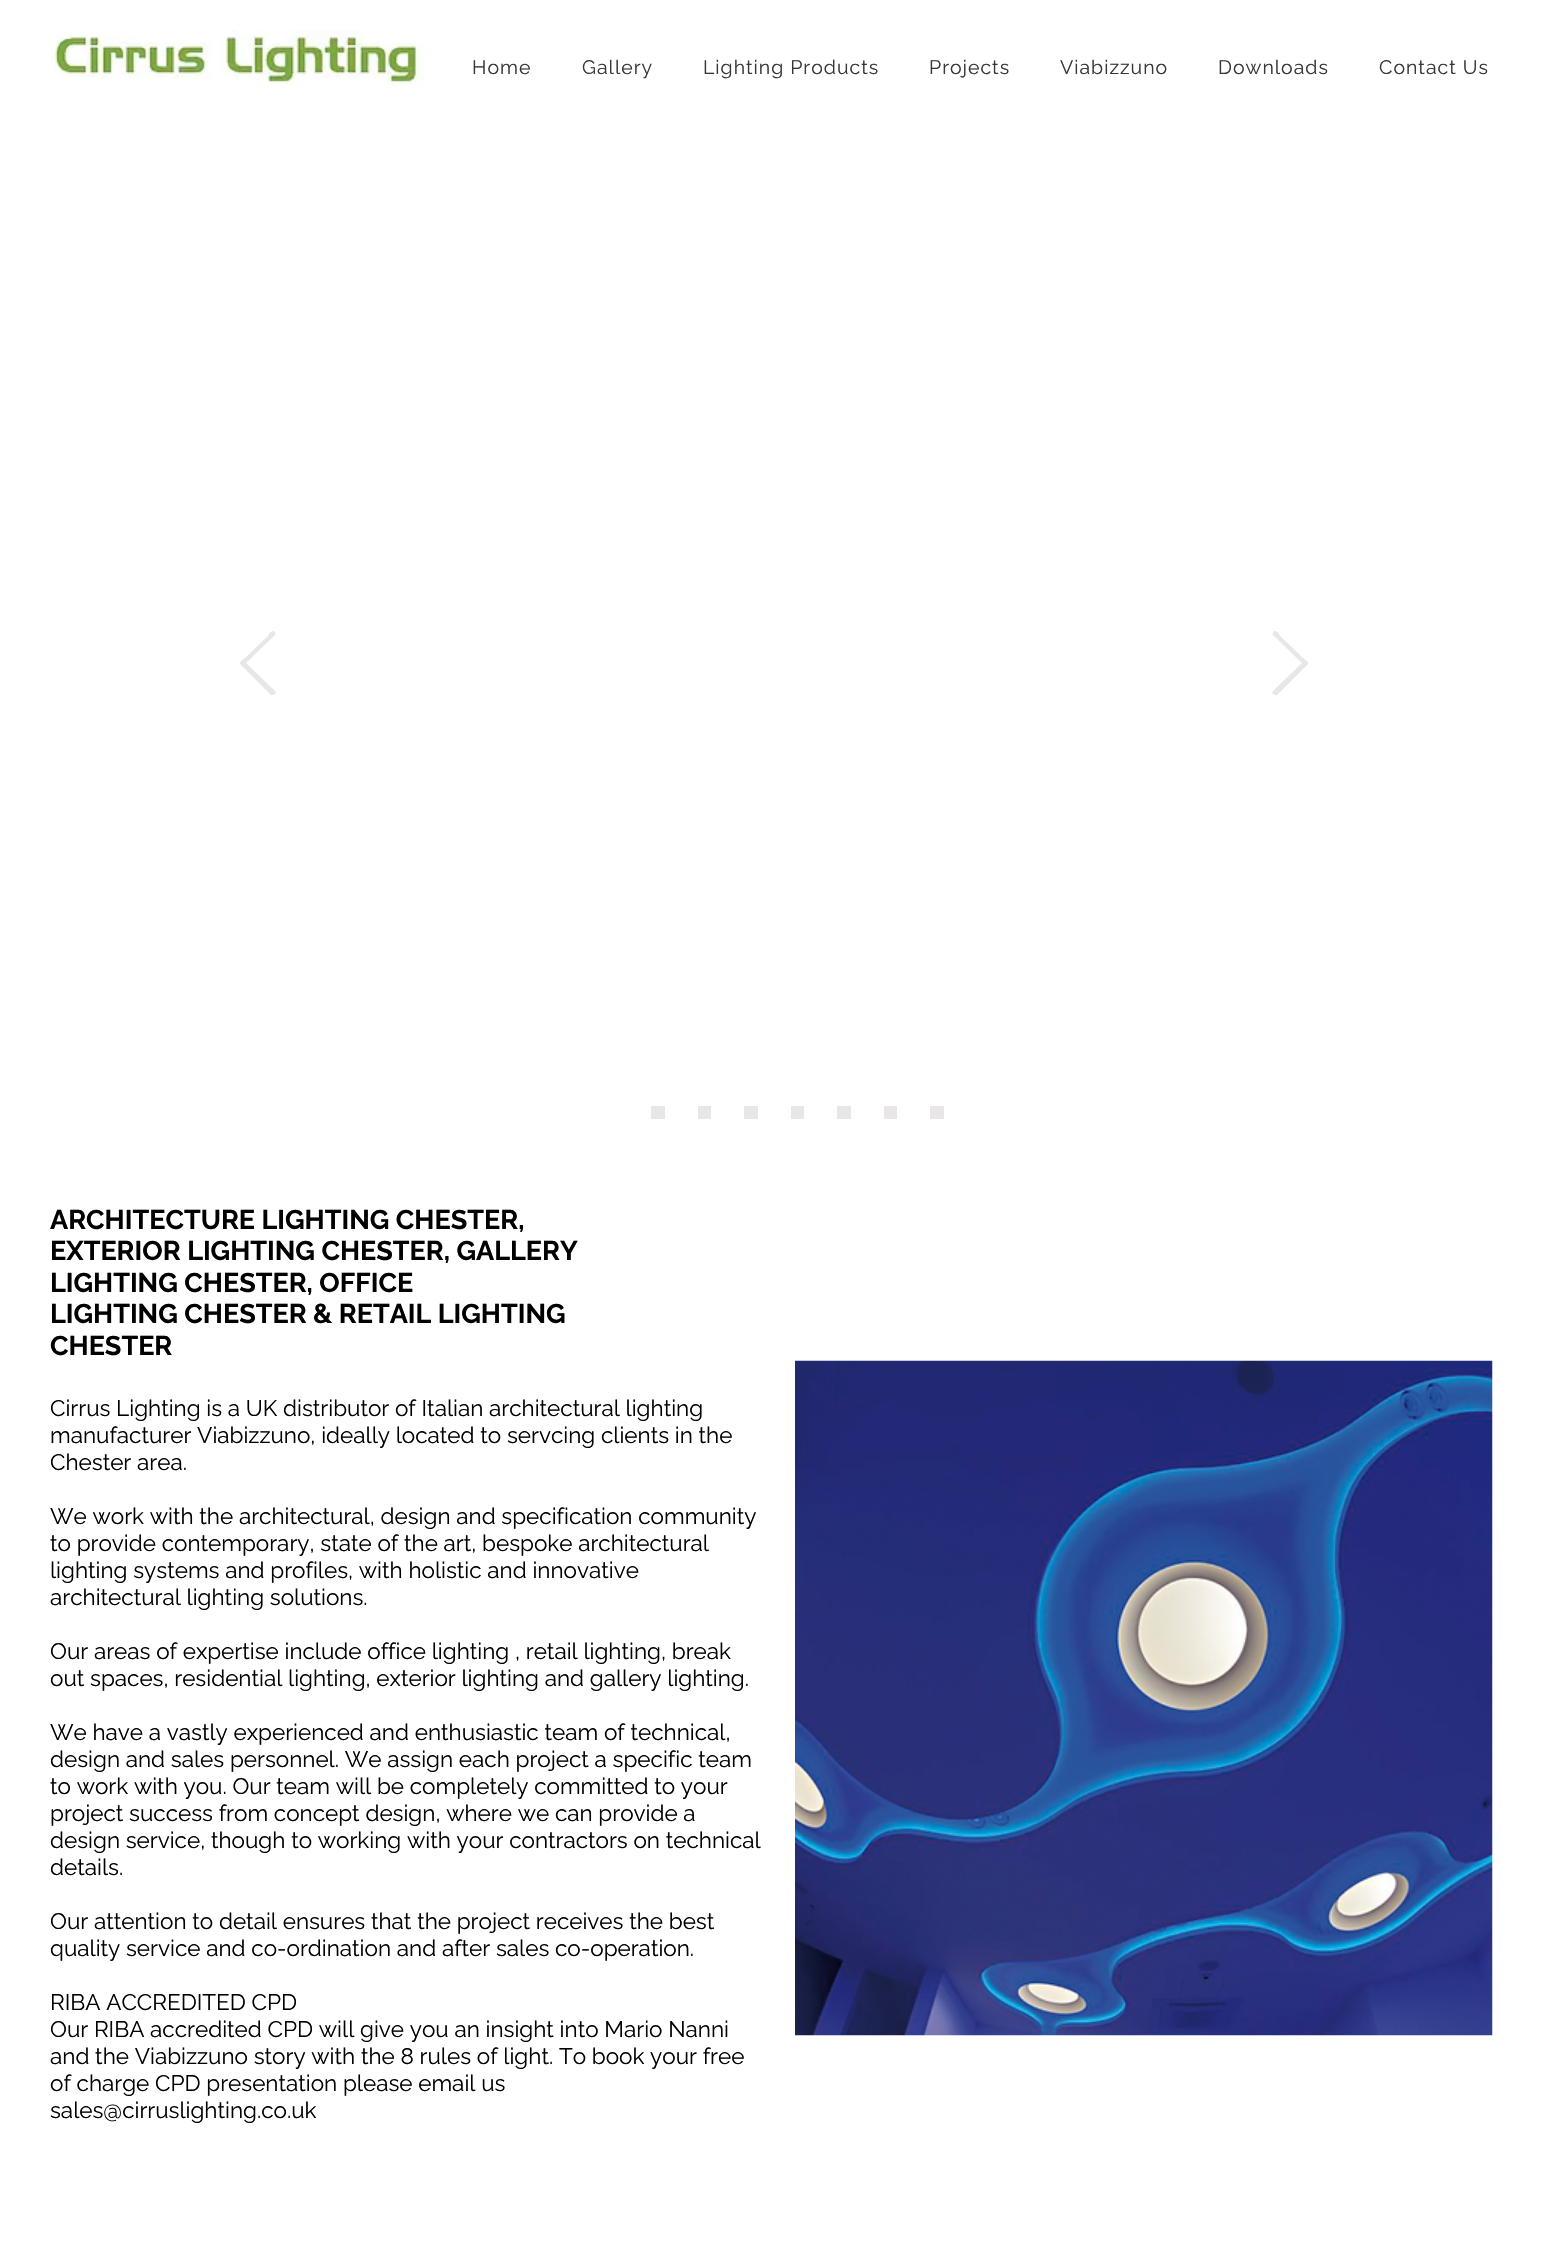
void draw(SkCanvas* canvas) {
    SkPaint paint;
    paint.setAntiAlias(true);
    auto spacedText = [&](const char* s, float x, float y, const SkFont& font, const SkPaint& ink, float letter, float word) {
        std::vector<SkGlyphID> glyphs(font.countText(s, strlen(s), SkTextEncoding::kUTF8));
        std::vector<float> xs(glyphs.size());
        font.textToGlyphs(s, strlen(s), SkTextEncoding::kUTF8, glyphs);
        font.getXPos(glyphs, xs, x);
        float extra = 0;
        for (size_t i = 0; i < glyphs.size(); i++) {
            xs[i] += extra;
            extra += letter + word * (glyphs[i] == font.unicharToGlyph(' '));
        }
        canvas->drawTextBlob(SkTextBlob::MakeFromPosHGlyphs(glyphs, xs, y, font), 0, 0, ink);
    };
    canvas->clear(0xFFFFFFFF);
    canvas->drawImageRect(SkImages::DeferredFromEncodedData(SkData::MakeFromFileName("img1.png")), SkRect::MakeXYWH(51, 30, 373, 59), SkSamplingOptions());
    SkFont font1(fontMgr->matchFamilyStyle("Raleway", SkFontStyle::Normal()), 19.5f);
    font1.setSubpixel(true);
    paint.setColor(0xFF363636);
    spacedText("Home", 472, 74, font1, paint, 1, 0);
    spacedText("Gallery", 582, 74, font1, paint, 1, 0);
    spacedText("Lighting Products", 703, 74, font1, paint, 1, 0);
    spacedText("Projects", 929, 74, font1, paint, 1, 0);
    spacedText("Viabizzuno", 1060, 74, font1, paint, 1, 0);
    spacedText("Downloads", 1218, 74, font1, paint, 1, 0);
    spacedText("Contact Us", 1379, 74, font1, paint, 1, 0);
    paint.setColor(0xFFE8E6E6);
    canvas->drawPath(SkPathBuilder().moveTo(273, 695).lineTo(275, 694).cubicTo(276, 693, 276, 692, 275, 691).lineTo(246, 663).lineTo(275, 635).cubicTo(276, 634, 275, 631, 273, 631).cubicTo(270, 631, 269, 635, 267, 637).lineTo(246, 657).cubicTo(238, 664, 238, 662, 246, 670).lineTo(271, 695).close().detach(), paint);
    canvas->drawPath(SkPathBuilder().moveTo(1275, 695).lineTo(1273, 694).cubicTo(1272, 693, 1272, 692, 1273, 691).lineTo(1302, 663).lineTo(1273, 635).cubicTo(1272, 634, 1273, 631, 1275, 631).cubicTo(1278, 631, 1279, 635, 1281, 637).lineTo(1302, 657).cubicTo(1310, 664, 1310, 662, 1302, 670).lineTo(1277, 695).close().detach(), paint);
    canvas->drawRect(SkRect::MakeXYWH(651, 1106, 14, 13), paint);
    canvas->drawRect(SkRect::MakeXYWH(698, 1106, 13, 13), paint);
    canvas->drawRect(SkRect::MakeXYWH(744, 1106, 14, 13), paint);
    canvas->drawRect(SkRect::MakeXYWH(791, 1106, 13, 13), paint);
    canvas->drawRect(SkRect::MakeXYWH(837, 1106, 14, 13), paint);
    canvas->drawRect(SkRect::MakeXYWH(884, 1106, 13, 13), paint);
    canvas->drawRect(SkRect::MakeXYWH(930, 1106, 14, 13), paint);
    SkFont font2(fontMgr->matchFamilyStyle("Raleway", SkFontStyle::Bold()), 27);
    font2.setSubpixel(true);
    paint.setColor(0xFF000000);
    canvas->drawString("ARCHITECTURE LIGHTING CHESTER,", 50, 1229, font2, paint);
    canvas->drawString("EXTERIOR LIGHTING CHESTER, GALLERY", 50, 1260, font2, paint);
    canvas->drawString("LIGHTING CHESTER, OFFICE", 50, 1292, font2, paint);
    canvas->drawString("LIGHTING CHESTER & RETAIL LIGHTING", 50, 1323, font2, paint);
    canvas->drawString("CHESTER", 50, 1355, font2, paint);
    SkFont font3(fontMgr->matchFamilyStyle("Raleway", SkFontStyle::Normal()), 22.5f);
    font3.setSubpixel(true);
    canvas->drawString("Cirrus Lighting is a UK distributor of Italian architectural lighting", 50, 1416, font3, paint);
    canvas->drawString("manufacturer Viabizzuno, ideally located to servcing clients in the", 50, 1443, font3, paint);
    canvas->drawString("Chester area.", 50, 1470, font3, paint);
    canvas->drawString("We work with the architectural, design and specification community", 50, 1524, font3, paint);
    canvas->drawString("to provide contemporary, state of the art, bespoke architectural", 50, 1551, font3, paint);
    canvas->drawString("lighting systems and profiles, with holistic and innovative", 50, 1578, font3, paint);
    canvas->drawString("architectural lighting solutions.", 50, 1605, font3, paint);
    canvas->drawString("Our areas of expertise include office lighting , retail lighting, break", 50, 1659, font3, paint);
    canvas->drawString("out spaces, residential lighting, exterior lighting and gallery lighting.", 50, 1686, font3, paint);
    canvas->drawString("We have a vastly experienced and enthusiastic team of technical,", 50, 1740, font3, paint);
    canvas->drawString("design and sales personnel. We assign each project a specific team", 50, 1767, font3, paint);
    canvas->drawString("to work with you. Our team will be completely committed to your", 50, 1794, font3, paint);
    canvas->drawString("project success from concept design, where we can provide a", 50, 1821, font3, paint);
    canvas->drawString("design service, though to working with your contractors on technical", 50, 1848, font3, paint);
    canvas->drawString("details.", 50, 1875, font3, paint);
    canvas->drawString("Our attention to detail ensures that the project receives the best", 50, 1929, font3, paint);
    canvas->drawString("quality service and co-ordination and after sales co-operation.", 50, 1956, font3, paint);
    canvas->drawString("RIBA ACCREDITED CPD", 50, 2010, font3, paint);
    canvas->drawString("Our RIBA accredited CPD will give you an insight into Mario Nanni", 50, 2037, font3, paint);
    canvas->drawString("and the Viabizzuno story with the 8 rules of light. To book your free", 50, 2064, font3, paint);
    canvas->drawString("of charge CPD presentation please email us", 50, 2091, font3, paint);
    canvas->drawString("sales@cirruslighting.co.uk", 50, 2118, font3, paint);
    canvas->drawImageRect(SkImages::DeferredFromEncodedData(SkData::MakeFromFileName("img2.png")), SkRect::MakeXYWH(795, 1360, 698, 676), SkSamplingOptions());
}
